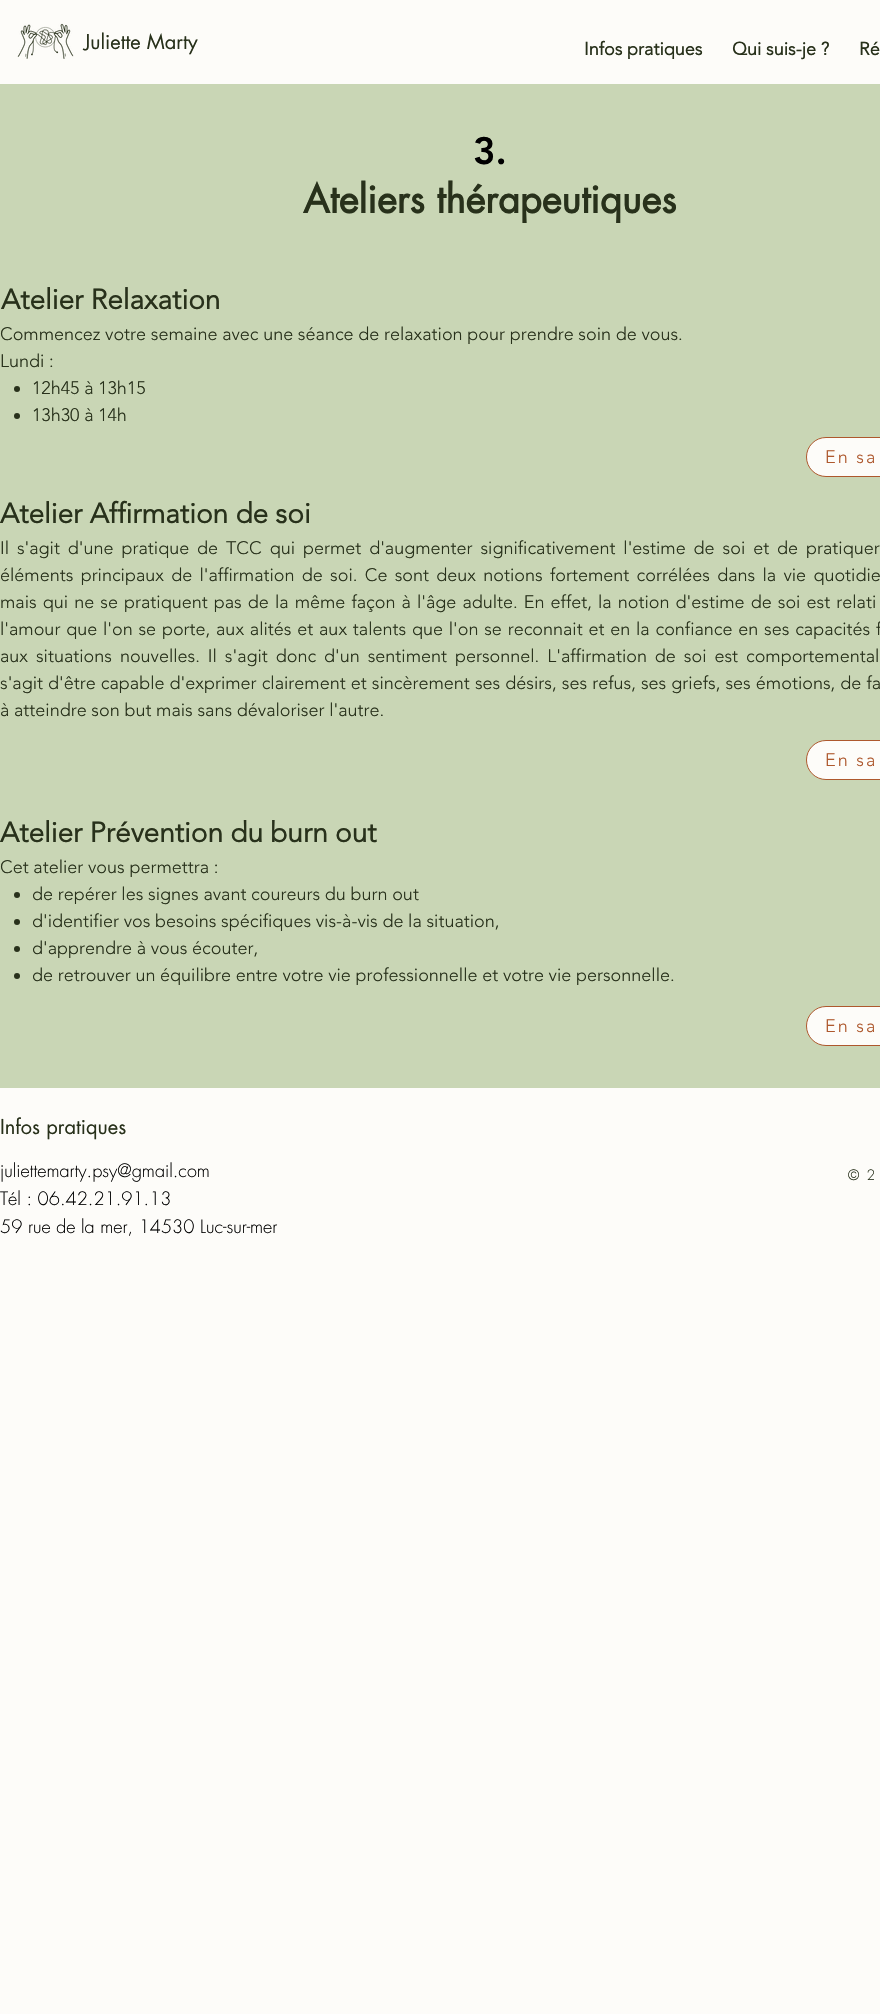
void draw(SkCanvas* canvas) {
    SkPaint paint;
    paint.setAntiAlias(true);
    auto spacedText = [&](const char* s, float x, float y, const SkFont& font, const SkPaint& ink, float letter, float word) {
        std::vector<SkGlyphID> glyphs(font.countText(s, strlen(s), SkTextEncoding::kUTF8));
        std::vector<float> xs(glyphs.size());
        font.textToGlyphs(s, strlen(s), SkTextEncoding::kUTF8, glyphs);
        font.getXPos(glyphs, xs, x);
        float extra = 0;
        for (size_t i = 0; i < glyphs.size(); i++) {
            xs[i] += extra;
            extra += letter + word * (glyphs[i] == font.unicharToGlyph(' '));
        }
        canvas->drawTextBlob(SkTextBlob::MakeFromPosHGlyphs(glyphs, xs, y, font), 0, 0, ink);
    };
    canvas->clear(0xFFFDFCF9);
    canvas->drawImageRect(SkImages::DeferredFromEncodedData(SkData::MakeFromFileName("img1.png")), SkRect::MakeXYWH(17, 23, 57, 36), SkSamplingOptions());
    SkFont font1(fontMgr->matchFamilyStyle("futura", SkFontStyle::Normal()), 20);
    font1.setSubpixel(true);
    paint.setColor(0xFF28311B);
    canvas->drawString("Juliette Marty", 84, 49, font1, paint);
    SkFont font2(fontMgr->matchFamilyStyle("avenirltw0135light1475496", SkFontStyle::Bold()), 18);
    font2.setSubpixel(true);
    canvas->drawString("Infos pratiques", 584, 55, font2, paint);
    canvas->drawString("Qui suis-je ?", 732, 55, font2, paint);
    canvas->drawString("Ré", 859, 55, font2, paint);
    paint.setColor(0xFFC9D6B5);
    canvas->drawRect(SkRect::MakeXYWH(0, 84, 880, 1004), paint);
    SkFont font3(fontMgr->matchFamilyStyle("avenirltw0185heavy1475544", SkFontStyle(900, SkFontStyle::kNormal_Width, SkFontStyle::kUpright_Slant)), 38);
    font3.setSubpixel(true);
    paint.setColor(0xFF000000);
    canvas->drawString("3.", 473, 164, font3, paint);
    SkFont font4(fontMgr->matchFamilyStyle("futura", SkFontStyle::Bold()), 38);
    font4.setSubpixel(true);
    paint.setColor(0xFF28311B);
    canvas->drawString("Ateliers thérapeutiques", 303, 213, font4, paint);
    SkFont font5(fontMgr->matchFamilyStyle("avenirltw0135light1475496", SkFontStyle::Bold()), 28);
    font5.setSubpixel(true);
    canvas->drawString("Atelier Relaxation", 1, 309, font5, paint);
    SkFont font6(fontMgr->matchFamilyStyle("avenirltw0135light1475496", SkFontStyle(300, SkFontStyle::kNormal_Width, SkFontStyle::kUpright_Slant)), 18);
    font6.setSubpixel(true);
    canvas->drawString("Commencez votre semaine avec une séance de relaxation pour prendre soin de vous.", 0, 340, font6, paint);
    canvas->drawString("Lundi :", 0, 367, font6, paint);
    canvas->drawCircle(17, 389, 3, paint);
    canvas->drawString("12h45 à 13h15", 32, 394, font6, paint);
    canvas->drawCircle(17, 416, 3, paint);
    canvas->drawString("13h30 à 14h", 32, 421, font6, paint);
    paint.setColor(0xFFFDFCF9);
    canvas->drawRoundRect(SkRect::MakeXYWH(806.5f, 437.5f, 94, 39), 19.5f, 19.5f, paint);
    paint.setStyle(SkPaint::kStroke_Style);
    paint.setStrokeWidth(1);
    paint.setColor(0xFFAE582D);
    canvas->drawRoundRect(SkRect::MakeXYWH(806.5f, 437.5f, 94, 39), 19.5f, 19.5f, paint);
    paint.setStyle(SkPaint::kFill_Style);
    spacedText("En sa", 825, 463, font6, paint, 2, 0);
    paint.setColor(0xFF28311B);
    canvas->drawString("Atelier Affirmation de soi", 0, 523, font5, paint);
    spacedText("Il s'agit d'une pratique de TCC qui permet d'augmenter significativement l'estime de soi et de pratiquer", 0, 554, font6, paint, 0, 3.25f);
    spacedText("éléments principaux de l'affirmation de soi. Ce sont deux notions fortement corrélées dans la vie quotidie", 0, 581, font6, paint, 0, 2.6f);
    spacedText("mais qui ne se pratiquent pas de la même façon à l'âge adulte. En effet, la notion d'estime de soi est relati", 0, 608, font6, paint, 0, 1.4f);
    spacedText("l'amour que l'on se porte, aux alités et aux talents que l'on se reconnait et en la confiance en ses capacités f", 0, 635, font6, paint, 0, 1.1f);
    spacedText("aux situations nouvelles. Il s'agit donc d'un sentiment personnel. L'affirmation de soi est comportemental", 0, 662, font6, paint, 0, 3.25f);
    spacedText("s'agit d'être capable d'exprimer clairement et sincèrement ses désirs, ses refus, ses griefs, ses émotions, de fa", 0, 689, font6, paint, 0, 0.4f);
    canvas->drawString("à atteindre son but mais sans dévaloriser l'autre.", 0, 716, font6, paint);
    paint.setColor(0xFFFDFCF9);
    canvas->drawRoundRect(SkRect::MakeXYWH(806.5f, 740.5f, 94, 39), 19.5f, 19.5f, paint);
    paint.setStyle(SkPaint::kStroke_Style);
    paint.setColor(0xFFAE582D);
    canvas->drawRoundRect(SkRect::MakeXYWH(806.5f, 740.5f, 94, 39), 19.5f, 19.5f, paint);
    paint.setStyle(SkPaint::kFill_Style);
    spacedText("En sa", 825, 766, font6, paint, 2, 0);
    paint.setColor(0xFF28311B);
    canvas->drawString("Atelier Prévention du burn out", 0, 842, font5, paint);
    canvas->drawString("Cet atelier vous permettra :", 0, 873, font6, paint);
    canvas->drawCircle(17, 895, 3, paint);
    canvas->drawString("de repérer les signes avant coureurs du burn out", 32, 900, font6, paint);
    canvas->drawCircle(17, 922, 3, paint);
    canvas->drawString("d'identifier vos besoins spécifiques vis-à-vis de la situation,", 32, 927, font6, paint);
    canvas->drawCircle(17, 949, 3, paint);
    canvas->drawString("d'apprendre à vous écouter,", 32, 954, font6, paint);
    canvas->drawCircle(17, 976, 3, paint);
    canvas->drawString("de retrouver un équilibre entre votre vie professionnelle et votre vie personnelle.", 32, 981, font6, paint);
    paint.setColor(0xFFFDFCF9);
    canvas->drawRoundRect(SkRect::MakeXYWH(806.5f, 1006.5f, 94, 39), 19.5f, 19.5f, paint);
    paint.setStyle(SkPaint::kStroke_Style);
    paint.setColor(0xFFAE582D);
    canvas->drawRoundRect(SkRect::MakeXYWH(806.5f, 1006.5f, 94, 39), 19.5f, 19.5f, paint);
    paint.setStyle(SkPaint::kFill_Style);
    spacedText("En sa", 825, 1032, font6, paint, 2, 0);
    paint.setColor(0xFF28311B);
    canvas->drawString("Infos pratiques", 0, 1134, font1, paint);
    SkFont font7(fontMgr->matchFamilyStyle("futura", SkFontStyle(300, SkFontStyle::kNormal_Width, SkFontStyle::kUpright_Slant)), 18);
    font7.setSubpixel(true);
    paint.setColor(0xFF000000);
    canvas->drawString("juliettemarty.psy@gmail.com", 0, 1177, font7, paint);
    canvas->drawString("Tél : 06.42.21.91.13", 0, 1205, font7, paint);
    canvas->drawString("59 rue de la mer, 14530 Luc-sur-mer", 0, 1233, font7, paint);
    SkFont font8(fontMgr->matchFamilyStyle("futura", SkFontStyle(300, SkFontStyle::kNormal_Width, SkFontStyle::kUpright_Slant)), 14);
    font8.setSubpixel(true);
    paint.setColor(0xFF28311B);
    spacedText("© 2", 848, 1180, font8, paint, 1.5f, 0);
}
